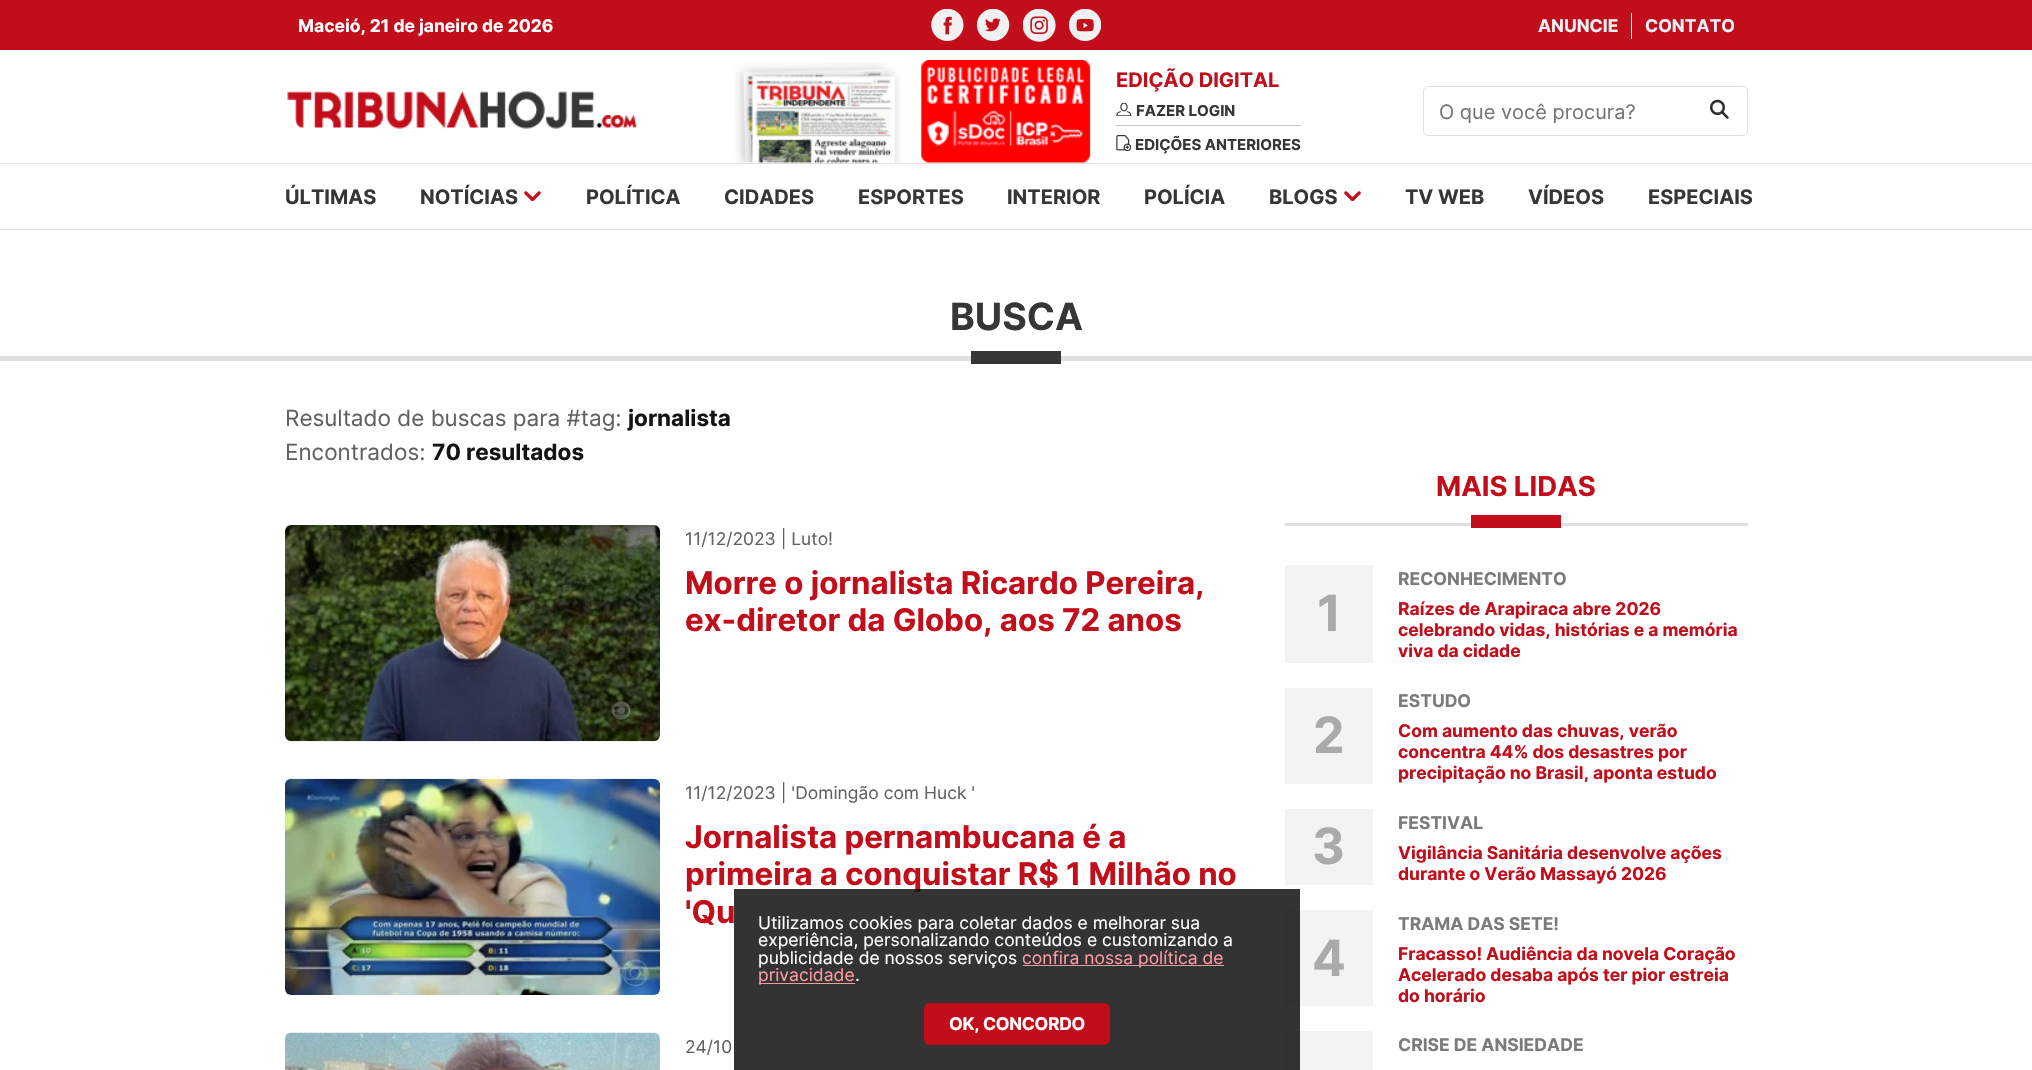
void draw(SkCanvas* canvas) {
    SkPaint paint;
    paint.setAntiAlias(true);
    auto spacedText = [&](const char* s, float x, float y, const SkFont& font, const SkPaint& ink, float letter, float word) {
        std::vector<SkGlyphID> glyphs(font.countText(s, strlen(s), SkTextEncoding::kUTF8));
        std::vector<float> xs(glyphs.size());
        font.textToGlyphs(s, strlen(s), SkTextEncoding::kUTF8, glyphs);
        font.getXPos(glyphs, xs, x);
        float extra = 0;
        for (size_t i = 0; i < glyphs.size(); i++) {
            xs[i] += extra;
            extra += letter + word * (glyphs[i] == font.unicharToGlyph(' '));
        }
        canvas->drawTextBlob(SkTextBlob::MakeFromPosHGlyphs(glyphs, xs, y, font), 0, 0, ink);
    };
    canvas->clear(0xFFFFFFFF);
    paint.setColor(0xFFC20E1A);
    canvas->drawRect(SkRect::MakeXYWH(0, 0, 2032, 50), paint);
    SkFont font1(fontMgr->matchFamilyStyle("Inter", SkFontStyle::Bold()), 17.5f);
    font1.setSubpixel(true);
    paint.setColor(0xFFFFFFFF);
    canvas->drawString("Maceió, 21 de janeiro de 2026", 298, 32, font1, paint);
    canvas->drawImageRect(SkImages::DeferredFromEncodedData(SkData::MakeFromFileName("img1.png")), SkRect::MakeXYWH(931, 9, 33, 32), SkSamplingOptions());
    canvas->drawImageRect(SkImages::DeferredFromEncodedData(SkData::MakeFromFileName("img2.png")), SkRect::MakeXYWH(976, 9, 34, 32), SkSamplingOptions());
    canvas->drawImageRect(SkImages::DeferredFromEncodedData(SkData::MakeFromFileName("img3.png")), SkRect::MakeXYWH(1023, 9, 33, 33), SkSamplingOptions());
    canvas->drawImageRect(SkImages::DeferredFromEncodedData(SkData::MakeFromFileName("img4.png")), SkRect::MakeXYWH(1069, 9, 32, 32), SkSamplingOptions());
    paint.setColor(0xFFEDF1F6);
    canvas->drawString("ANUNCIE", 1538, 32, font1, paint);
    paint.setColor(0xFFFFFFFF);
    canvas->drawRect(SkRect::MakeXYWH(1631, 13, 1, 26), paint);
    paint.setColor(0xFFEDF1F6);
    canvas->drawString("CONTATO", 1645, 32, font1, paint);
    canvas->drawImageRect(SkImages::DeferredFromEncodedData(SkData::MakeFromFileName("img5.png")), SkRect::MakeXYWH(287, 91, 350, 38), SkSamplingOptions());
    canvas->drawImageRect(SkImages::DeferredFromEncodedData(SkData::MakeFromFileName("img6.png")), SkRect::MakeXYWH(734, 62, 167, 101), SkSamplingOptions());
    canvas->drawImageRect(SkImages::DeferredFromEncodedData(SkData::MakeFromFileName("img7.png")), SkRect::MakeXYWH(921, 60, 170, 103), SkSamplingOptions());
    SkFont font2(fontMgr->matchFamilyStyle("Inter", SkFontStyle::Bold()), 20);
    font2.setSubpixel(true);
    paint.setColor(0xFFC20E1A);
    canvas->drawString("EDIÇÃO DIGITAL", 1116, 87, font2, paint);
    canvas->drawImageRect(SkImages::DeferredFromEncodedData(SkData::MakeFromFileName("img8.png")), SkRect::MakeXYWH(1116, 103, 16, 13), SkSamplingOptions());
    SkFont font3(fontMgr->matchFamilyStyle("Inter", SkFontStyle::Bold()), 15);
    font3.setSubpixel(true);
    paint.setColor(0xFF363635);
    canvas->drawString("FAZER LOGIN", 1136, 116, font3, paint);
    paint.setColor(0xFFC4C4C4);
    canvas->drawRect(SkRect::MakeXYWH(1116, 125, 185, 1), paint);
    canvas->drawImageRect(SkImages::DeferredFromEncodedData(SkData::MakeFromFileName("img9.png")), SkRect::MakeXYWH(1116, 135, 15, 16), SkSamplingOptions());
    paint.setColor(0xFF363635);
    canvas->drawString("EDIÇÕES ANTERIORES", 1135, 150, font3, paint);
    paint.setStyle(SkPaint::kStroke_Style);
    paint.setStrokeWidth(1);
    paint.setColor(0xFFE0E0E0);
    canvas->drawRoundRect(SkRect::MakeXYWH(1423.5f, 86.5f, 324, 49), 4.5f, 4.5f, paint);
    SkFont font4(fontMgr->matchFamilyStyle("Inter", SkFontStyle::Normal()), 20);
    font4.setSubpixel(true);
    paint.setStyle(SkPaint::kFill_Style);
    paint.setColor(0xFF757575);
    canvas->drawString("O que você procura?", 1439, 119, font4, paint);
    canvas->drawImageRect(SkImages::DeferredFromEncodedData(SkData::MakeFromFileName("img10.png")), SkRect::MakeXYWH(1710, 99, 19, 20), SkSamplingOptions());
    paint.setColor(0xFFE2E2E2);
    canvas->drawRect(SkRect::MakeXYWH(0, 163, 2032, 1), paint);
    canvas->drawRect(SkRect::MakeXYWH(0, 229, 2032, 1), paint);
    paint.setColor(0xFF363635);
    canvas->drawString("ÚLTIMAS", 285, 204, font2, paint);
    canvas->drawString("NOTÍCIAS", 420, 204, font2, paint);
    canvas->drawImageRect(SkImages::DeferredFromEncodedData(SkData::MakeFromFileName("img11.png")), SkRect::MakeXYWH(524, 191, 17, 10), SkSamplingOptions());
    canvas->drawString("POLÍTICA", 586, 204, font2, paint);
    canvas->drawString("CIDADES", 724, 204, font2, paint);
    canvas->drawString("ESPORTES", 858, 204, font2, paint);
    canvas->drawString("INTERIOR", 1007, 204, font2, paint);
    canvas->drawString("POLÍCIA", 1144, 204, font2, paint);
    canvas->drawString("BLOGS", 1269, 204, font2, paint);
    canvas->drawImageRect(SkImages::DeferredFromEncodedData(SkData::MakeFromFileName("img11.png")), SkRect::MakeXYWH(1344, 191, 17, 10), SkSamplingOptions());
    canvas->drawString("TV WEB", 1405, 204, font2, paint);
    canvas->drawString("VÍDEOS", 1528, 204, font2, paint);
    canvas->drawString("ESPECIAIS", 1648, 204, font2, paint);
    SkFont font5(fontMgr->matchFamilyStyle("Inter", SkFontStyle::Bold()), 37.5f);
    font5.setSubpixel(true);
    canvas->drawString("BUSCA", 950, 330, font5, paint);
    paint.setColor(0xFFE0E0E0);
    canvas->drawRect(SkRect::MakeXYWH(0, 356, 2032, 5), paint);
    paint.setColor(0xFF363635);
    canvas->drawRect(SkRect::MakeXYWH(971, 351, 90, 13), paint);
    SkFont font6(fontMgr->matchFamilyStyle("Inter", SkFontStyle::Normal()), 22.5f);
    font6.setSubpixel(true);
    paint.setColor(0xFF616161);
    canvas->drawString("Resultado de buscas para #tag:", 285, 426, font6, paint);
    SkFont font7(fontMgr->matchFamilyStyle("Inter", SkFontStyle::Bold()), 22.5f);
    font7.setSubpixel(true);
    paint.setColor(0xFF131510);
    canvas->drawString("jornalista", 628, 426, font7, paint);
    paint.setColor(0xFF616161);
    canvas->drawString("Encontrados:", 285, 460, font6, paint);
    paint.setColor(0xFF131510);
    canvas->drawString("70 resultados", 432, 460, font7, paint);
    canvas->drawImageRect(SkImages::DeferredFromEncodedData(SkData::MakeFromFileName("img12.png")), SkRect::MakeXYWH(285, 525, 375, 217), SkSamplingOptions());
    SkFont font8(fontMgr->matchFamilyStyle("Inter", SkFontStyle::Normal()), 17.5f);
    font8.setSubpixel(true);
    paint.setColor(0xFF616161);
    canvas->drawString("11/12/2023 | Luto!", 685, 545, font8, paint);
    SkFont font9(fontMgr->matchFamilyStyle("Inter", SkFontStyle::Bold()), 31.25f);
    font9.setSubpixel(true);
    paint.setColor(0xFFC20E1A);
    canvas->drawString("Morre o jornalista Ricardo Pereira,", 685, 594, font9, paint);
    canvas->drawString("ex-diretor da Globo, aos 72 anos", 685, 631, font9, paint);
    canvas->drawImageRect(SkImages::DeferredFromEncodedData(SkData::MakeFromFileName("img13.png")), SkRect::MakeXYWH(285, 778, 375, 217), SkSamplingOptions());
    paint.setColor(0xFF616161);
    canvas->drawString("11/12/2023 | 'Domingão com Huck '", 685, 799, font8, paint);
    paint.setColor(0xFFC20E1A);
    canvas->drawString("Jornalista pernambucana é a", 685, 848, font9, paint);
    canvas->drawString("primeira a conquistar R$ 1 Milhão no", 685, 885, font9, paint);
    canvas->drawString("'Qu", 685, 923, font9, paint);
    canvas->drawImageRect(SkImages::DeferredFromEncodedData(SkData::MakeFromFileName("img14.png")), SkRect::MakeXYWH(285, 1032, 375, 38), SkSamplingOptions());
    paint.setColor(0xFF616161);
    canvas->drawString("24/10", 685, 1053, font8, paint);
    SkFont font10(fontMgr->matchFamilyStyle("Inter", SkFontStyle::Bold()), 27.5f);
    font10.setSubpixel(true);
    paint.setColor(0xFFC20E1A);
    canvas->drawString("MAIS LIDAS", 1436, 496, font10, paint);
    paint.setColor(0xFFE0E0E0);
    canvas->drawRect(SkRect::MakeXYWH(1285, 523, 463, 3), paint);
    paint.setColor(0xFFC20E1A);
    canvas->drawRect(SkRect::MakeXYWH(1471, 515, 90, 13), paint);
    paint.setColor(0xFFF3F3F3);
    canvas->drawRect(SkRect::MakeXYWH(1285, 565, 88, 98), paint);
    SkFont font11(fontMgr->matchFamilyStyle("Inter", SkFontStyle::Bold()), 50);
    font11.setSubpixel(true);
    paint.setColor(0xFFAAAAAA);
    canvas->drawString("1", 1317, 631, font11, paint);
    paint.setColor(0xFF7B7B7A);
    canvas->drawString("RECONHECIMENTO", 1398, 585, font1, paint);
    paint.setColor(0xFFC20E1A);
    canvas->drawString("Raízes de Arapiraca abre 2026", 1398, 615, font1, paint);
    canvas->drawString("celebrando vidas, histórias e a memória", 1398, 636, font1, paint);
    canvas->drawString("viva da cidade", 1398, 657, font1, paint);
    paint.setColor(0xFFF3F3F3);
    canvas->drawRect(SkRect::MakeXYWH(1285, 688, 88, 96), paint);
    paint.setColor(0xFFAAAAAA);
    canvas->drawString("2", 1313, 753, font11, paint);
    paint.setColor(0xFF7B7B7A);
    canvas->drawString("ESTUDO", 1398, 707, font1, paint);
    paint.setColor(0xFFC20E1A);
    canvas->drawString("Com aumento das chuvas, verão", 1398, 737, font1, paint);
    canvas->drawString("concentra 44% dos desastres por", 1398, 758, font1, paint);
    canvas->drawString("precipitação no Brasil, aponta estudo", 1398, 779, font1, paint);
    paint.setColor(0xFFF3F3F3);
    canvas->drawRect(SkRect::MakeXYWH(1285, 809, 88, 76), paint);
    paint.setColor(0xFFAAAAAA);
    canvas->drawString("3", 1312, 864, font11, paint);
    paint.setColor(0xFF7B7B7A);
    canvas->drawString("FESTIVAL", 1398, 829, font1, paint);
    paint.setColor(0xFFC20E1A);
    canvas->drawString("Vigilância Sanitária desenvolve ações", 1398, 859, font1, paint);
    canvas->drawString("durante o Verão Massayó 2026", 1398, 880, font1, paint);
    paint.setColor(0xFFF3F3F3);
    canvas->drawRect(SkRect::MakeXYWH(1285, 910, 88, 96), paint);
    paint.setColor(0xFFAAAAAA);
    canvas->drawString("4", 1312, 976, font11, paint);
    paint.setColor(0xFF7B7B7A);
    canvas->drawString("TRAMA DAS SETE!", 1398, 930, font1, paint);
    paint.setColor(0xFFC20E1A);
    canvas->drawString("Fracasso! Audiência da novela Coração", 1398, 960, font1, paint);
    canvas->drawString("Acelerado desaba após ter pior estreia", 1398, 981, font1, paint);
    canvas->drawString("do horário", 1398, 1002, font1, paint);
    paint.setColor(0xFFF3F3F3);
    canvas->drawRect(SkRect::MakeXYWH(1285, 1031, 88, 39), paint);
    paint.setColor(0xFF7B7B7A);
    canvas->drawString("CRISE DE ANSIEDADE", 1398, 1051, font1, paint);
    paint.setColor(0xCC000000);
    canvas->drawRect(SkRect::MakeXYWH(734, 889, 566, 181), paint);
    paint.setColor(0xFFFFFFFF);
    canvas->drawString("Utilizamos cookies para coletar dados e melhorar sua", 758, 929, font8, paint);
    canvas->drawString("experiência, personalizando conteúdos e customizando a", 758, 946, font8, paint);
    canvas->drawString("publicidade de nossos serviços", 758, 964, font8, paint);
    paint.setColor(0xFFFF9CA2);
    canvas->drawRect(SkRect::MakeXYWH(1023, 965, 201, 1), paint);
    canvas->drawString("confira nossa política de", 1022, 964, font8, paint);
    canvas->drawRect(SkRect::MakeXYWH(759, 983, 96, 1), paint);
    canvas->drawString("privacidade", 758, 981, font8, paint);
    paint.setColor(0xFFFFFFFF);
    canvas->drawString(".", 855, 981, font8, paint);
    paint.setColor(0xFFC20E1A);
    canvas->drawRoundRect(SkRect::MakeXYWH(924, 1003, 186, 42), 6, 6, paint);
    paint.setColor(0xFFFFFFFF);
    spacedText("OK, CONCORDO", 949, 1030, font1, paint, -0.3f, 0);
}
